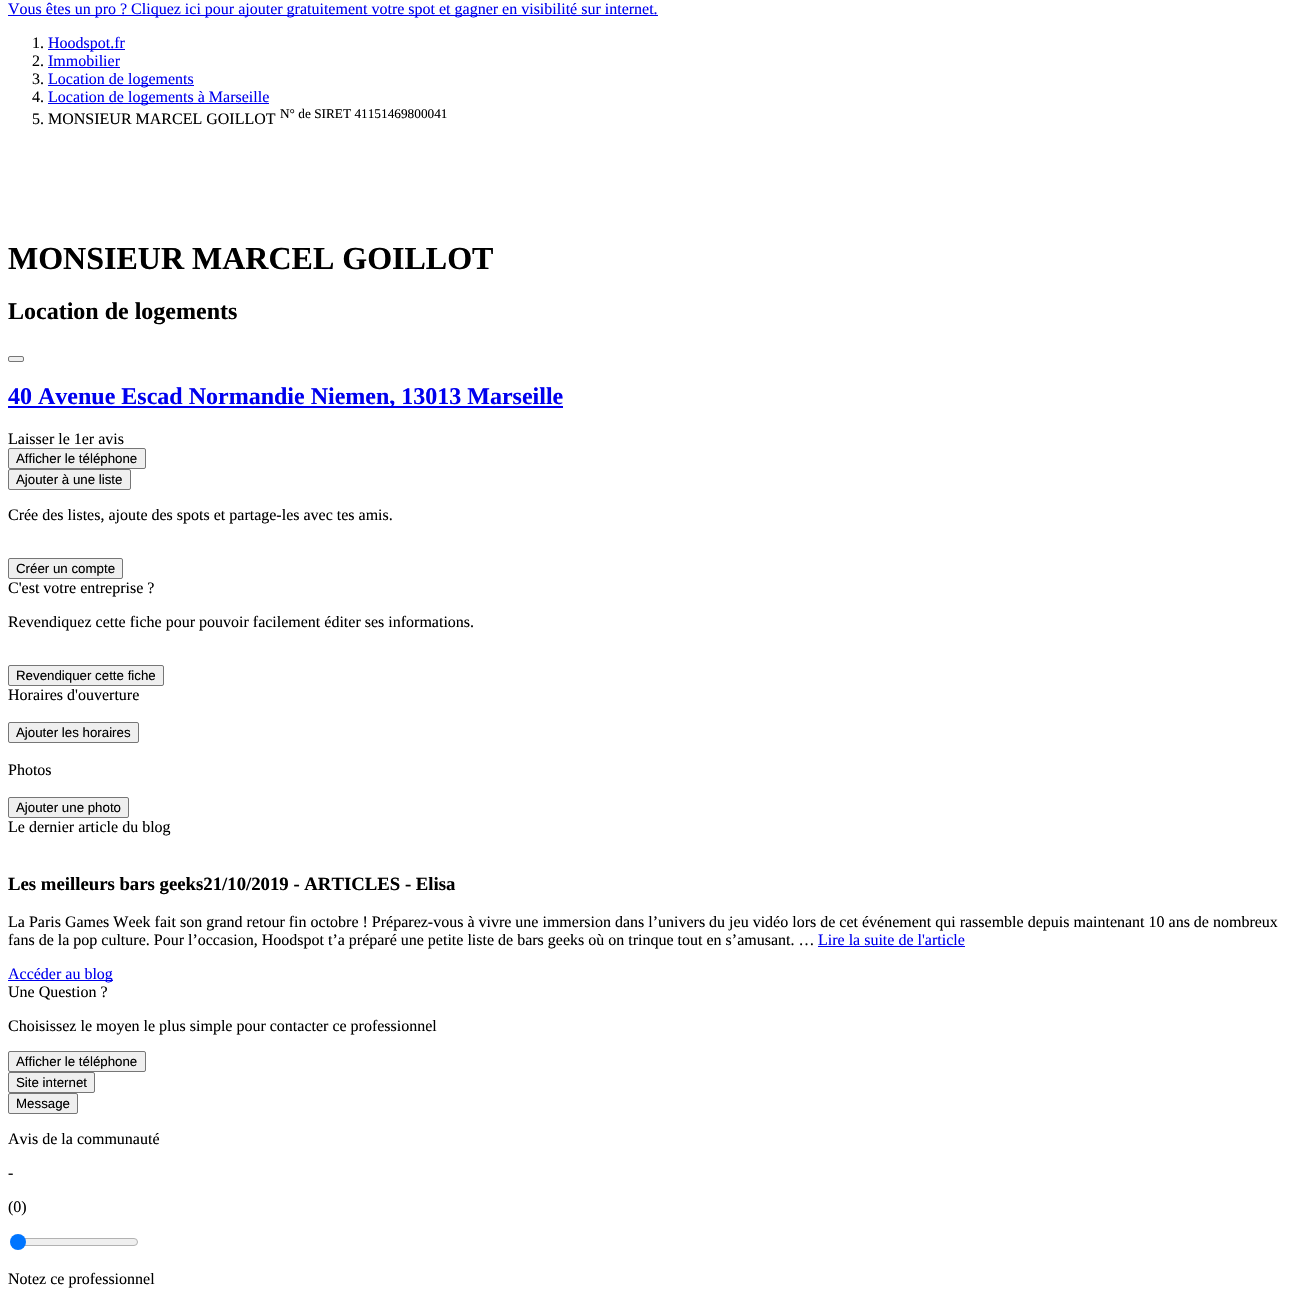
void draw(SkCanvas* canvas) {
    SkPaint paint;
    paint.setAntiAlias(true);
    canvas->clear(0xFFFFFFFF);
    paint.setColor(0xFF0000EE);
    canvas->drawRect(SkRect::MakeXYWH(8, 15, 650, 1), paint);
    SkFont font1(fontMgr->matchFamilyStyle("Liberation Serif", SkFontStyle::Normal()), 16);
    font1.setSubpixel(true);
    canvas->drawString("Vous êtes un pro ? Cliquez ici pour ajouter gratuitement votre spot et gagner en visibilité sur internet.", 8, 14, font1, paint);
    paint.setColor(0xFF000000);
    canvas->drawString("1.", 32, 48, font1, paint);
    paint.setColor(0xFF0000EE);
    canvas->drawRect(SkRect::MakeXYWH(48, 49, 77, 1), paint);
    canvas->drawString("Hoodspot.fr", 48, 48, font1, paint);
    paint.setColor(0xFF000000);
    canvas->drawString("2.", 32, 66, font1, paint);
    paint.setColor(0xFF0000EE);
    canvas->drawString("Immobilier", 48, 66, font1, paint);
    canvas->drawRect(SkRect::MakeXYWH(48, 67, 72, 1), paint);
    paint.setColor(0xFF000000);
    canvas->drawString("3.", 32, 84, font1, paint);
    paint.setColor(0xFF0000EE);
    canvas->drawRect(SkRect::MakeXYWH(48, 85, 146, 1), paint);
    canvas->drawString("Location de logements", 48, 84, font1, paint);
    paint.setColor(0xFF000000);
    canvas->drawString("4.", 32, 102, font1, paint);
    paint.setColor(0xFF0000EE);
    canvas->drawRect(SkRect::MakeXYWH(48, 103, 221, 1), paint);
    canvas->drawString("Location de logements à Marseille", 48, 102, font1, paint);
    paint.setColor(0xFF000000);
    canvas->drawString("5. MONSIEUR MARCEL GOILLOT", 32, 124, font1, paint);
    SkFont font2(fontMgr->matchFamilyStyle("Liberation Serif", SkFontStyle::Normal()), 13.3f);
    font2.setSubpixel(true);
    canvas->drawString("N° de SIRET 41151469800041", 280, 118, font2, paint);
    SkFont font3(fontMgr->matchFamilyStyle("Liberation Serif", SkFontStyle::Bold()), 32);
    font3.setSubpixel(true);
    canvas->drawString("MONSIEUR MARCEL GOILLOT", 8, 269, font3, paint);
    SkFont font4(fontMgr->matchFamilyStyle("Liberation Serif", SkFontStyle::Bold()), 24);
    font4.setSubpixel(true);
    canvas->drawString("Location de logements", 8, 319, font4, paint);
    paint.setColor(0xFFEFEFEF);
    canvas->drawRoundRect(SkRect::MakeXYWH(8.5f, 356.5f, 15, 5), 1.5f, 1.5f, paint);
    paint.setStyle(SkPaint::kStroke_Style);
    paint.setStrokeWidth(1);
    paint.setColor(0xFF767676);
    canvas->drawRoundRect(SkRect::MakeXYWH(8.5f, 356.5f, 15, 5), 1.5f, 1.5f, paint);
    paint.setStyle(SkPaint::kFill_Style);
    paint.setColor(0xFF0000EE);
    canvas->drawRect(SkRect::MakeXYWH(8, 406, 555, 2), paint);
    canvas->drawString("40 Avenue Escad Normandie Niemen, 13013 Marseille", 8, 404, font4, paint);
    paint.setColor(0xFF000000);
    canvas->drawString("Laisser le 1er avis", 8, 444, font1, paint);
    paint.setColor(0xFFEFEFEF);
    canvas->drawRoundRect(SkRect::MakeXYWH(8.5f, 448.5f, 137, 20), 1.5f, 1.5f, paint);
    paint.setStyle(SkPaint::kStroke_Style);
    paint.setColor(0xFF767676);
    canvas->drawRoundRect(SkRect::MakeXYWH(8.5f, 448.5f, 137, 20), 1.5f, 1.5f, paint);
    SkFont font5(fontMgr->matchFamilyStyle("Liberation Sans", SkFontStyle::Normal()), 13.3f);
    font5.setSubpixel(true);
    paint.setStyle(SkPaint::kFill_Style);
    paint.setColor(0xFF000000);
    canvas->drawString("Afficher le téléphone", 16, 463, font5, paint);
    paint.setColor(0xFFEFEFEF);
    canvas->drawRoundRect(SkRect::MakeXYWH(8.5f, 469.5f, 122, 20), 1.5f, 1.5f, paint);
    paint.setStyle(SkPaint::kStroke_Style);
    paint.setColor(0xFF767676);
    canvas->drawRoundRect(SkRect::MakeXYWH(8.5f, 469.5f, 122, 20), 1.5f, 1.5f, paint);
    paint.setStyle(SkPaint::kFill_Style);
    paint.setColor(0xFF000000);
    canvas->drawString("Ajouter à une liste", 16, 484, font5, paint);
    canvas->drawString("Crée des listes, ajoute des spots et partage-les avec tes amis.", 8, 520, font1, paint);
    paint.setColor(0xFFEFEFEF);
    canvas->drawRoundRect(SkRect::MakeXYWH(8.5f, 558.5f, 114, 20), 1.5f, 1.5f, paint);
    paint.setStyle(SkPaint::kStroke_Style);
    paint.setColor(0xFF767676);
    canvas->drawRoundRect(SkRect::MakeXYWH(8.5f, 558.5f, 114, 20), 1.5f, 1.5f, paint);
    paint.setStyle(SkPaint::kFill_Style);
    paint.setColor(0xFF000000);
    canvas->drawString("Créer un compte", 16, 573, font5, paint);
    canvas->drawString("C'est votre entreprise ?", 8, 593, font1, paint);
    canvas->drawString("Revendiquez cette fiche pour pouvoir facilement éditer ses informations.", 8, 627, font1, paint);
    paint.setColor(0xFFEFEFEF);
    canvas->drawRoundRect(SkRect::MakeXYWH(8.5f, 665.5f, 155, 20), 1.5f, 1.5f, paint);
    paint.setStyle(SkPaint::kStroke_Style);
    paint.setColor(0xFF767676);
    canvas->drawRoundRect(SkRect::MakeXYWH(8.5f, 665.5f, 155, 20), 1.5f, 1.5f, paint);
    paint.setStyle(SkPaint::kFill_Style);
    paint.setColor(0xFF000000);
    canvas->drawString("Revendiquer cette fiche", 16, 680, font5, paint);
    canvas->drawString("Horaires d'ouverture", 8, 700, font1, paint);
    paint.setColor(0xFFEFEFEF);
    canvas->drawRoundRect(SkRect::MakeXYWH(8.5f, 722.5f, 130, 20), 1.5f, 1.5f, paint);
    paint.setStyle(SkPaint::kStroke_Style);
    paint.setColor(0xFF767676);
    canvas->drawRoundRect(SkRect::MakeXYWH(8.5f, 722.5f, 130, 20), 1.5f, 1.5f, paint);
    paint.setStyle(SkPaint::kFill_Style);
    paint.setColor(0xFF000000);
    canvas->drawString("Ajouter les horaires", 16, 737, font5, paint);
    canvas->drawString("Photos", 8, 775, font1, paint);
    paint.setColor(0xFFEFEFEF);
    canvas->drawRoundRect(SkRect::MakeXYWH(8.5f, 797.5f, 120, 20), 1.5f, 1.5f, paint);
    paint.setStyle(SkPaint::kStroke_Style);
    paint.setColor(0xFF767676);
    canvas->drawRoundRect(SkRect::MakeXYWH(8.5f, 797.5f, 120, 20), 1.5f, 1.5f, paint);
    paint.setStyle(SkPaint::kFill_Style);
    paint.setColor(0xFF000000);
    canvas->drawString("Ajouter une photo", 16, 812, font5, paint);
    canvas->drawString("Le dernier article du blog", 8, 832, font1, paint);
    SkFont font6(fontMgr->matchFamilyStyle("Liberation Serif", SkFontStyle::Bold()), 18.75f);
    font6.setSubpixel(true);
    canvas->drawString("Les meilleurs bars geeks21/10/2019 - ARTICLES - Elisa", 8, 890, font6, paint);
    canvas->drawString("La Paris Games Week fait son grand retour fin octobre ! Préparez-vous à vivre une immersion dans l’univers du jeu vidéo lors de cet événement qui rassemble depuis maintenant 10 ans de nombreux", 8, 927, font1, paint);
    canvas->drawString("fans de la pop culture. Pour l’occasion, Hoodspot t’a préparé une petite liste de bars geeks où on trinque tout en s’amusant. …", 8, 945, font1, paint);
    paint.setColor(0xFF0000EE);
    canvas->drawString("Lire la suite de l'article", 818, 945, font1, paint);
    canvas->drawRect(SkRect::MakeXYWH(818, 946, 147, 1), paint);
    canvas->drawRect(SkRect::MakeXYWH(8, 980, 105, 1), paint);
    canvas->drawString("Accéder au blog", 8, 979, font1, paint);
    paint.setColor(0xFF000000);
    canvas->drawString("Une Question ?", 8, 997, font1, paint);
    canvas->drawString("Choisissez le moyen le plus simple pour contacter ce professionnel", 8, 1031, font1, paint);
    paint.setColor(0xFFEFEFEF);
    canvas->drawRoundRect(SkRect::MakeXYWH(8.5f, 1051.5f, 137, 20), 1.5f, 1.5f, paint);
    paint.setStyle(SkPaint::kStroke_Style);
    paint.setColor(0xFF767676);
    canvas->drawRoundRect(SkRect::MakeXYWH(8.5f, 1051.5f, 137, 20), 1.5f, 1.5f, paint);
    paint.setStyle(SkPaint::kFill_Style);
    paint.setColor(0xFF000000);
    canvas->drawString("Afficher le téléphone", 16, 1066, font5, paint);
    paint.setColor(0xFFEFEFEF);
    canvas->drawRoundRect(SkRect::MakeXYWH(8.5f, 1072.5f, 86, 20), 1.5f, 1.5f, paint);
    paint.setStyle(SkPaint::kStroke_Style);
    paint.setColor(0xFF767676);
    canvas->drawRoundRect(SkRect::MakeXYWH(8.5f, 1072.5f, 86, 20), 1.5f, 1.5f, paint);
    paint.setStyle(SkPaint::kFill_Style);
    paint.setColor(0xFF000000);
    canvas->drawString("Site internet", 16, 1087, font5, paint);
    paint.setColor(0xFFEFEFEF);
    canvas->drawRoundRect(SkRect::MakeXYWH(8.5f, 1093.5f, 69, 20), 1.5f, 1.5f, paint);
    paint.setStyle(SkPaint::kStroke_Style);
    paint.setColor(0xFF767676);
    canvas->drawRoundRect(SkRect::MakeXYWH(8.5f, 1093.5f, 69, 20), 1.5f, 1.5f, paint);
    paint.setStyle(SkPaint::kFill_Style);
    paint.setColor(0xFF000000);
    canvas->drawString("Message", 16, 1108, font5, paint);
    canvas->drawString("Avis de la communauté", 8, 1144, font1, paint);
    canvas->drawString("-", 8, 1178, font1, paint);
    canvas->drawString("(0)", 8, 1212, font1, paint);
    paint.setColor(0xFFEFEFEF);
    canvas->drawRoundRect(SkRect::MakeXYWH(11.5f, 1238.5f, 126, 7), 3.5f, 3.5f, paint);
    paint.setStyle(SkPaint::kStroke_Style);
    paint.setColor(0xFFB2B2B2);
    canvas->drawRoundRect(SkRect::MakeXYWH(11.5f, 1238.5f, 126, 7), 3.5f, 3.5f, paint);
    paint.setStyle(SkPaint::kFill_Style);
    paint.setColor(0xFF0075FF);
    canvas->drawCircle(18, 1242, 8, paint);
    paint.setColor(0xFF000000);
    canvas->drawString("Notez ce professionnel", 8, 1284, font1, paint);
}
